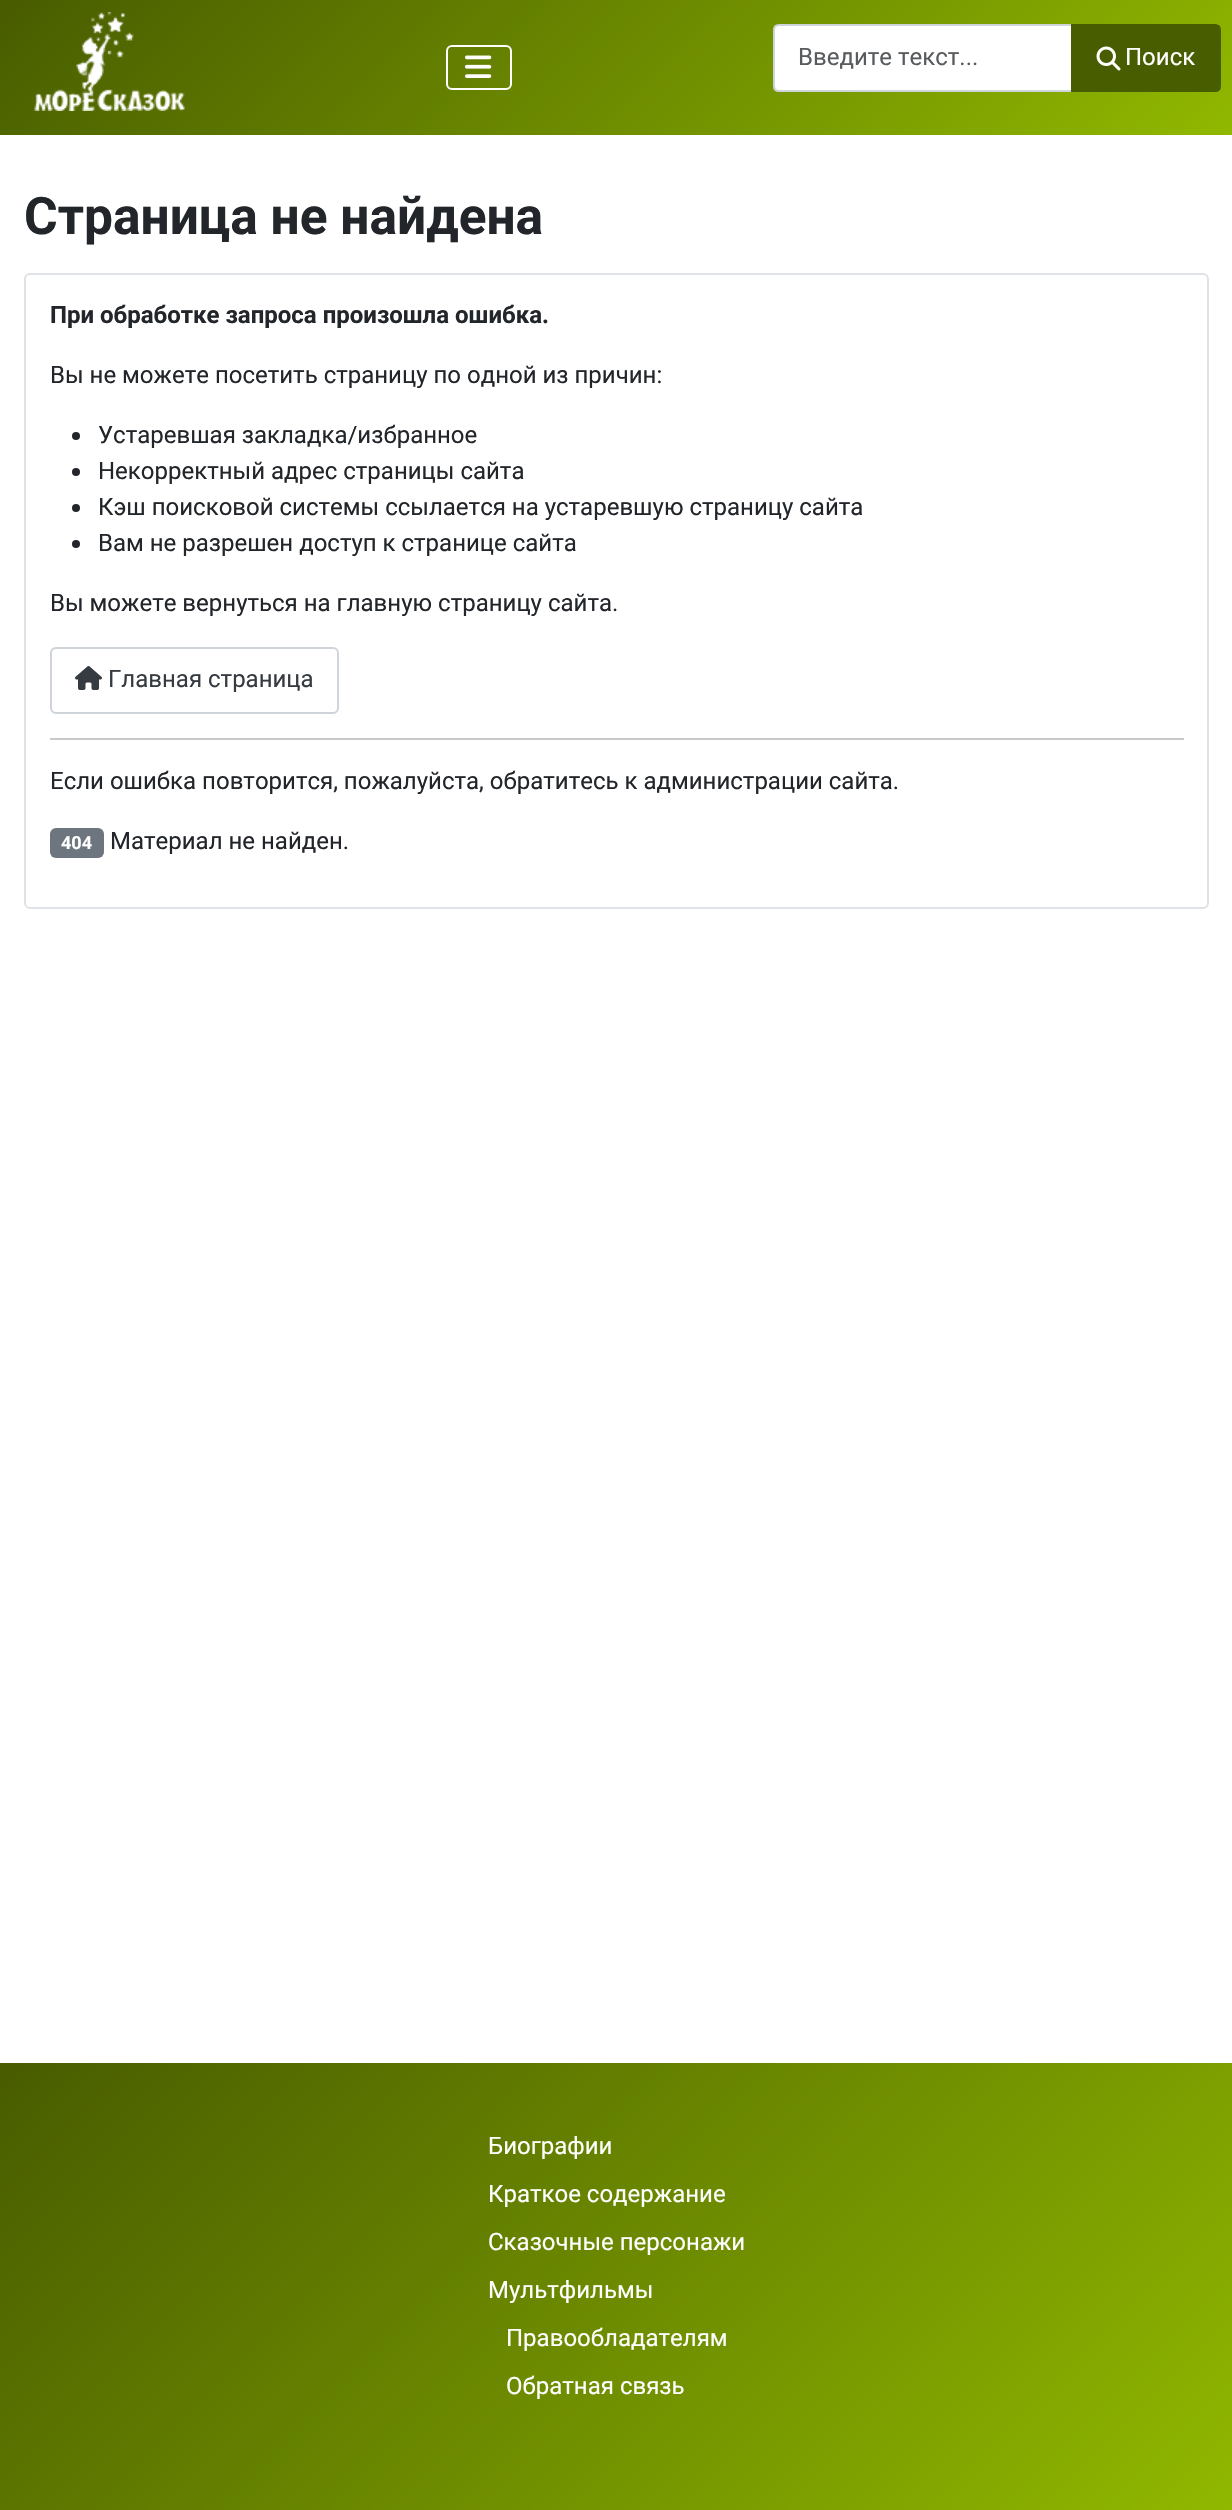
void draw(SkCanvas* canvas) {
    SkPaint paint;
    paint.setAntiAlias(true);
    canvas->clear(0xFFFFFFFF);
    {
        const SkColor colors[] = {0xFF485C00, 0xFF91B800};
        const float stops[] = {0, 1};
        const SkPoint ends[] = {{275, -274}, {959, 410}};
        paint.setShader(SkGradientShader::MakeLinear(ends, colors, stops, 2, SkTileMode::kClamp));
        paint.setAlpha(255);
    }
    canvas->drawRect(SkRect::MakeXYWH(0, 0, 1232, 135), paint);
    canvas->drawImageRect(SkImages::DeferredFromEncodedData(SkData::MakeFromFileName("img1.png")), SkRect::MakeXYWH(34, 12, 151, 99), SkSamplingOptions());
    paint.setStyle(SkPaint::kStroke_Style);
    paint.setStrokeWidth(2);
    paint.setShader(nullptr);
    paint.setColor(0xFFFFFFFF);
    canvas->drawRoundRect(SkRect::MakeXYWH(447, 46, 64, 43), 5, 5, paint);
    canvas->drawImageRect(SkImages::DeferredFromEncodedData(SkData::MakeFromFileName("img2.png")), SkRect::MakeXYWH(465, 55, 27, 23), SkSamplingOptions());
    paint.setStyle(SkPaint::kFill_Style);
    canvas->drawPath(SkPathBuilder().moveTo(779, 25).lineTo(1072, 25).lineTo(1072, 91).lineTo(779, 91).cubicTo(776, 91, 774, 89, 774, 86).lineTo(774, 30).cubicTo(774, 27, 776, 25, 779, 25).close().detach(), paint);
    paint.setStyle(SkPaint::kStroke_Style);
    paint.setColor(0xFFCED4DA);
    canvas->drawPath(SkPathBuilder().moveTo(779, 25).lineTo(1072, 25).lineTo(1072, 91).lineTo(779, 91).cubicTo(776, 91, 774, 89, 774, 86).lineTo(774, 30).cubicTo(774, 27, 776, 25, 779, 25).close().detach(), paint);
    SkFont font1(fontMgr->matchFamilyStyle("Roboto", SkFontStyle::Normal()), 24);
    font1.setSubpixel(true);
    paint.setStyle(SkPaint::kFill_Style);
    paint.setColor(0xFF595C5F);
    canvas->drawString("Введите текст...", 798, 65, font1, paint);
    paint.setColor(0xFF485C00);
    canvas->drawPath(SkPathBuilder().moveTo(1072, 25).lineTo(1215, 25).cubicTo(1218, 25, 1220, 27, 1220, 30).lineTo(1220, 86).cubicTo(1220, 89, 1218, 91, 1215, 91).lineTo(1072, 91).close().detach(), paint);
    paint.setStyle(SkPaint::kStroke_Style);
    canvas->drawPath(SkPathBuilder().moveTo(1072, 25).lineTo(1215, 25).cubicTo(1218, 25, 1220, 27, 1220, 30).lineTo(1220, 86).cubicTo(1220, 89, 1218, 91, 1215, 91).lineTo(1072, 91).close().detach(), paint);
    canvas->drawImageRect(SkImages::DeferredFromEncodedData(SkData::MakeFromFileName("img3.png")), SkRect::MakeXYWH(1096, 46, 25, 25), SkSamplingOptions());
    paint.setStyle(SkPaint::kFill_Style);
    paint.setColor(0xFFFFFFFF);
    canvas->drawString("Поиск", 1125, 65, font1, paint);
    SkFont font2(fontMgr->matchFamilyStyle("Roboto", SkFontStyle::Bold()), 51.5f);
    font2.setSubpixel(true);
    paint.setColor(0xFF22262A);
    canvas->drawString("Страница не найдена", 24, 234, font2, paint);
    paint.setStyle(SkPaint::kStroke_Style);
    paint.setColor(0xFFDFE3E7);
    canvas->drawRoundRect(SkRect::MakeXYWH(25, 274, 1183, 634), 5, 5, paint);
    SkFont font3(fontMgr->matchFamilyStyle("Roboto", SkFontStyle::Bold()), 24);
    font3.setSubpixel(true);
    paint.setStyle(SkPaint::kFill_Style);
    paint.setColor(0xFF22262A);
    canvas->drawString("При обработке запроса произошла ошибка.", 50, 323, font3, paint);
    canvas->drawString("Вы не можете посетить страницу по одной из причин:", 50, 383, font1, paint);
    canvas->drawCircle(76, 436, 4, paint);
    canvas->drawString("Устаревшая закладка/избранное", 98, 443, font1, paint);
    canvas->drawCircle(76, 472, 4, paint);
    canvas->drawString("Некорректный адрес страницы сайта", 98, 479, font1, paint);
    canvas->drawCircle(76, 508, 4, paint);
    canvas->drawString("Кэш поисковой системы ссылается на устаревшую страницу сайта", 98, 515, font1, paint);
    canvas->drawCircle(76, 544, 4, paint);
    canvas->drawString("Вам не разрешен доступ к странице сайта", 98, 551, font1, paint);
    canvas->drawString("Вы можете вернуться на главную страницу сайта.", 50, 611, font1, paint);
    paint.setStyle(SkPaint::kStroke_Style);
    paint.setColor(0xFFCED4DA);
    canvas->drawRoundRect(SkRect::MakeXYWH(51, 648, 287, 65), 5, 5, paint);
    canvas->drawImageRect(SkImages::DeferredFromEncodedData(SkData::MakeFromFileName("img4.png")), SkRect::MakeXYWH(75, 666, 27, 24), SkSamplingOptions());
    paint.setStyle(SkPaint::kFill_Style);
    paint.setColor(0xFF353B41);
    canvas->drawString("Главная страница", 108, 687, font1, paint);
    paint.setColor(0xFFC8C9CA);
    canvas->drawRect(SkRect::MakeXYWH(50, 738, 1134, 2), paint);
    paint.setColor(0xFF22262A);
    canvas->drawString("Если ошибка повторится, пожалуйста, обратитесь к администрации сайта.", 50, 789, font1, paint);
    paint.setColor(0xFF6D757E);
    canvas->drawRoundRect(SkRect::MakeXYWH(50, 828, 54, 30), 6, 6, paint);
    SkFont font4(fontMgr->matchFamilyStyle("Roboto", SkFontStyle::Bold()), 18);
    font4.setSubpixel(true);
    paint.setColor(0xFFFFFFFF);
    canvas->drawString("404", 61, 849, font4, paint);
    paint.setColor(0xFF22262A);
    canvas->drawString("Материал не найден.", 110, 849, font1, paint);
    {
        const SkColor colors[] = {0xFF485C00, 0xFF91B800};
        const float stops[] = {0, 1};
        const SkPoint ends[] = {{196, 1866}, {1037, 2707}};
        paint.setShader(SkGradientShader::MakeLinear(ends, colors, stops, 2, SkTileMode::kClamp));
        paint.setAlpha(255);
    }
    canvas->drawRect(SkRect::MakeXYWH(0, 2063, 1232, 447), paint);
    paint.setShader(nullptr);
    paint.setColor(0xFFFFFFFF);
    canvas->drawString("Биографии", 488, 2154, font1, paint);
    canvas->drawString("Краткое содержание", 488, 2202, font1, paint);
    canvas->drawString("Сказочные персонажи", 488, 2250, font1, paint);
    canvas->drawString("Мультфильмы", 488, 2298, font1, paint);
    canvas->drawString("Правообладателям", 506, 2346, font1, paint);
    canvas->drawString("Обратная связь", 506, 2394, font1, paint);
}
